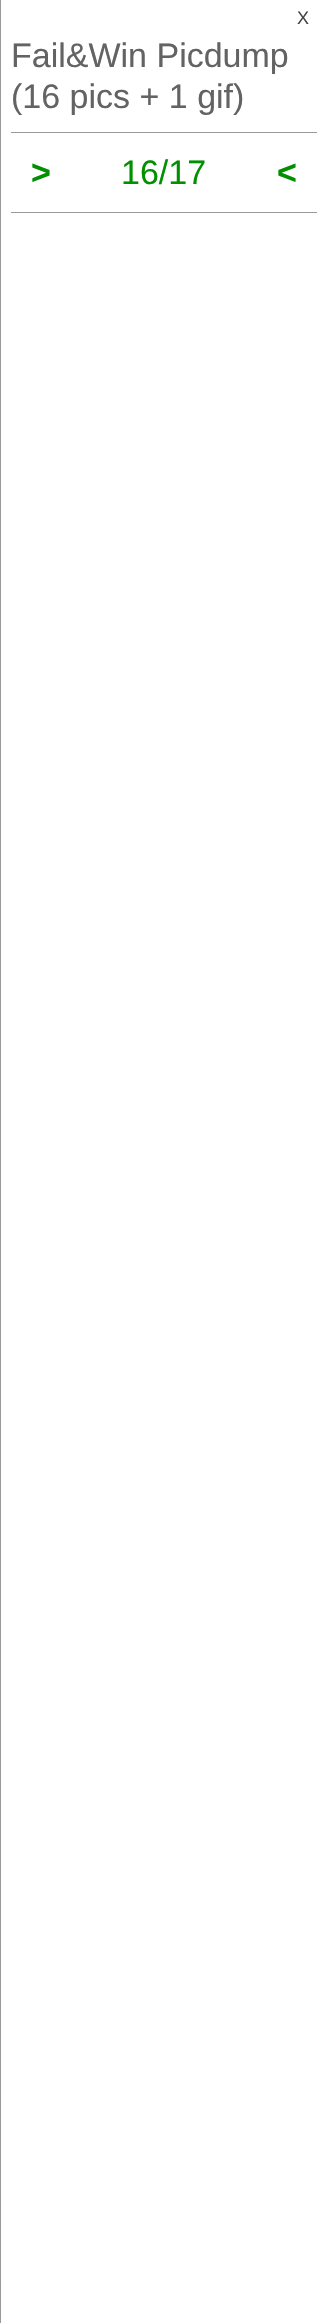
void draw(SkCanvas* canvas) {
    SkPaint paint;
    paint.setAntiAlias(true);
    canvas->clear(0xFFFFFFFF);
    paint.setColor(0xFF999999);
    canvas->drawRect(SkRect::MakeXYWH(0, 0, 1, 2323), paint);
    SkFont font1(fontMgr->matchFamilyStyle("Liberation Sans", SkFontStyle::Normal()), 18);
    font1.setSubpixel(true);
    paint.setColor(0xFF444444);
    canvas->drawString("X", 297, 24, font1, paint);
    SkFont font2(fontMgr->matchFamilyStyle("Liberation Sans", SkFontStyle::Normal()), 34);
    font2.setSubpixel(true);
    paint.setColor(0xFF636363);
    canvas->drawString("Fail&Win Picdump", 11, 67, font2, paint);
    canvas->drawString("(16 pics + 1 gif)", 11, 108, font2, paint);
    paint.setColor(0xFF999999);
    canvas->drawRect(SkRect::MakeXYWH(11, 132, 306, 1), paint);
    canvas->drawRect(SkRect::MakeXYWH(11, 212, 306, 1), paint);
    SkFont font3(fontMgr->matchFamilyStyle("Liberation Sans", SkFontStyle::Bold()), 34);
    font3.setSubpixel(true);
    paint.setColor(0xFF009000);
    canvas->drawString(">", 31, 184, font3, paint);
    canvas->drawString("16/17", 121, 184, font2, paint);
    canvas->drawString("<", 277, 184, font3, paint);
}
